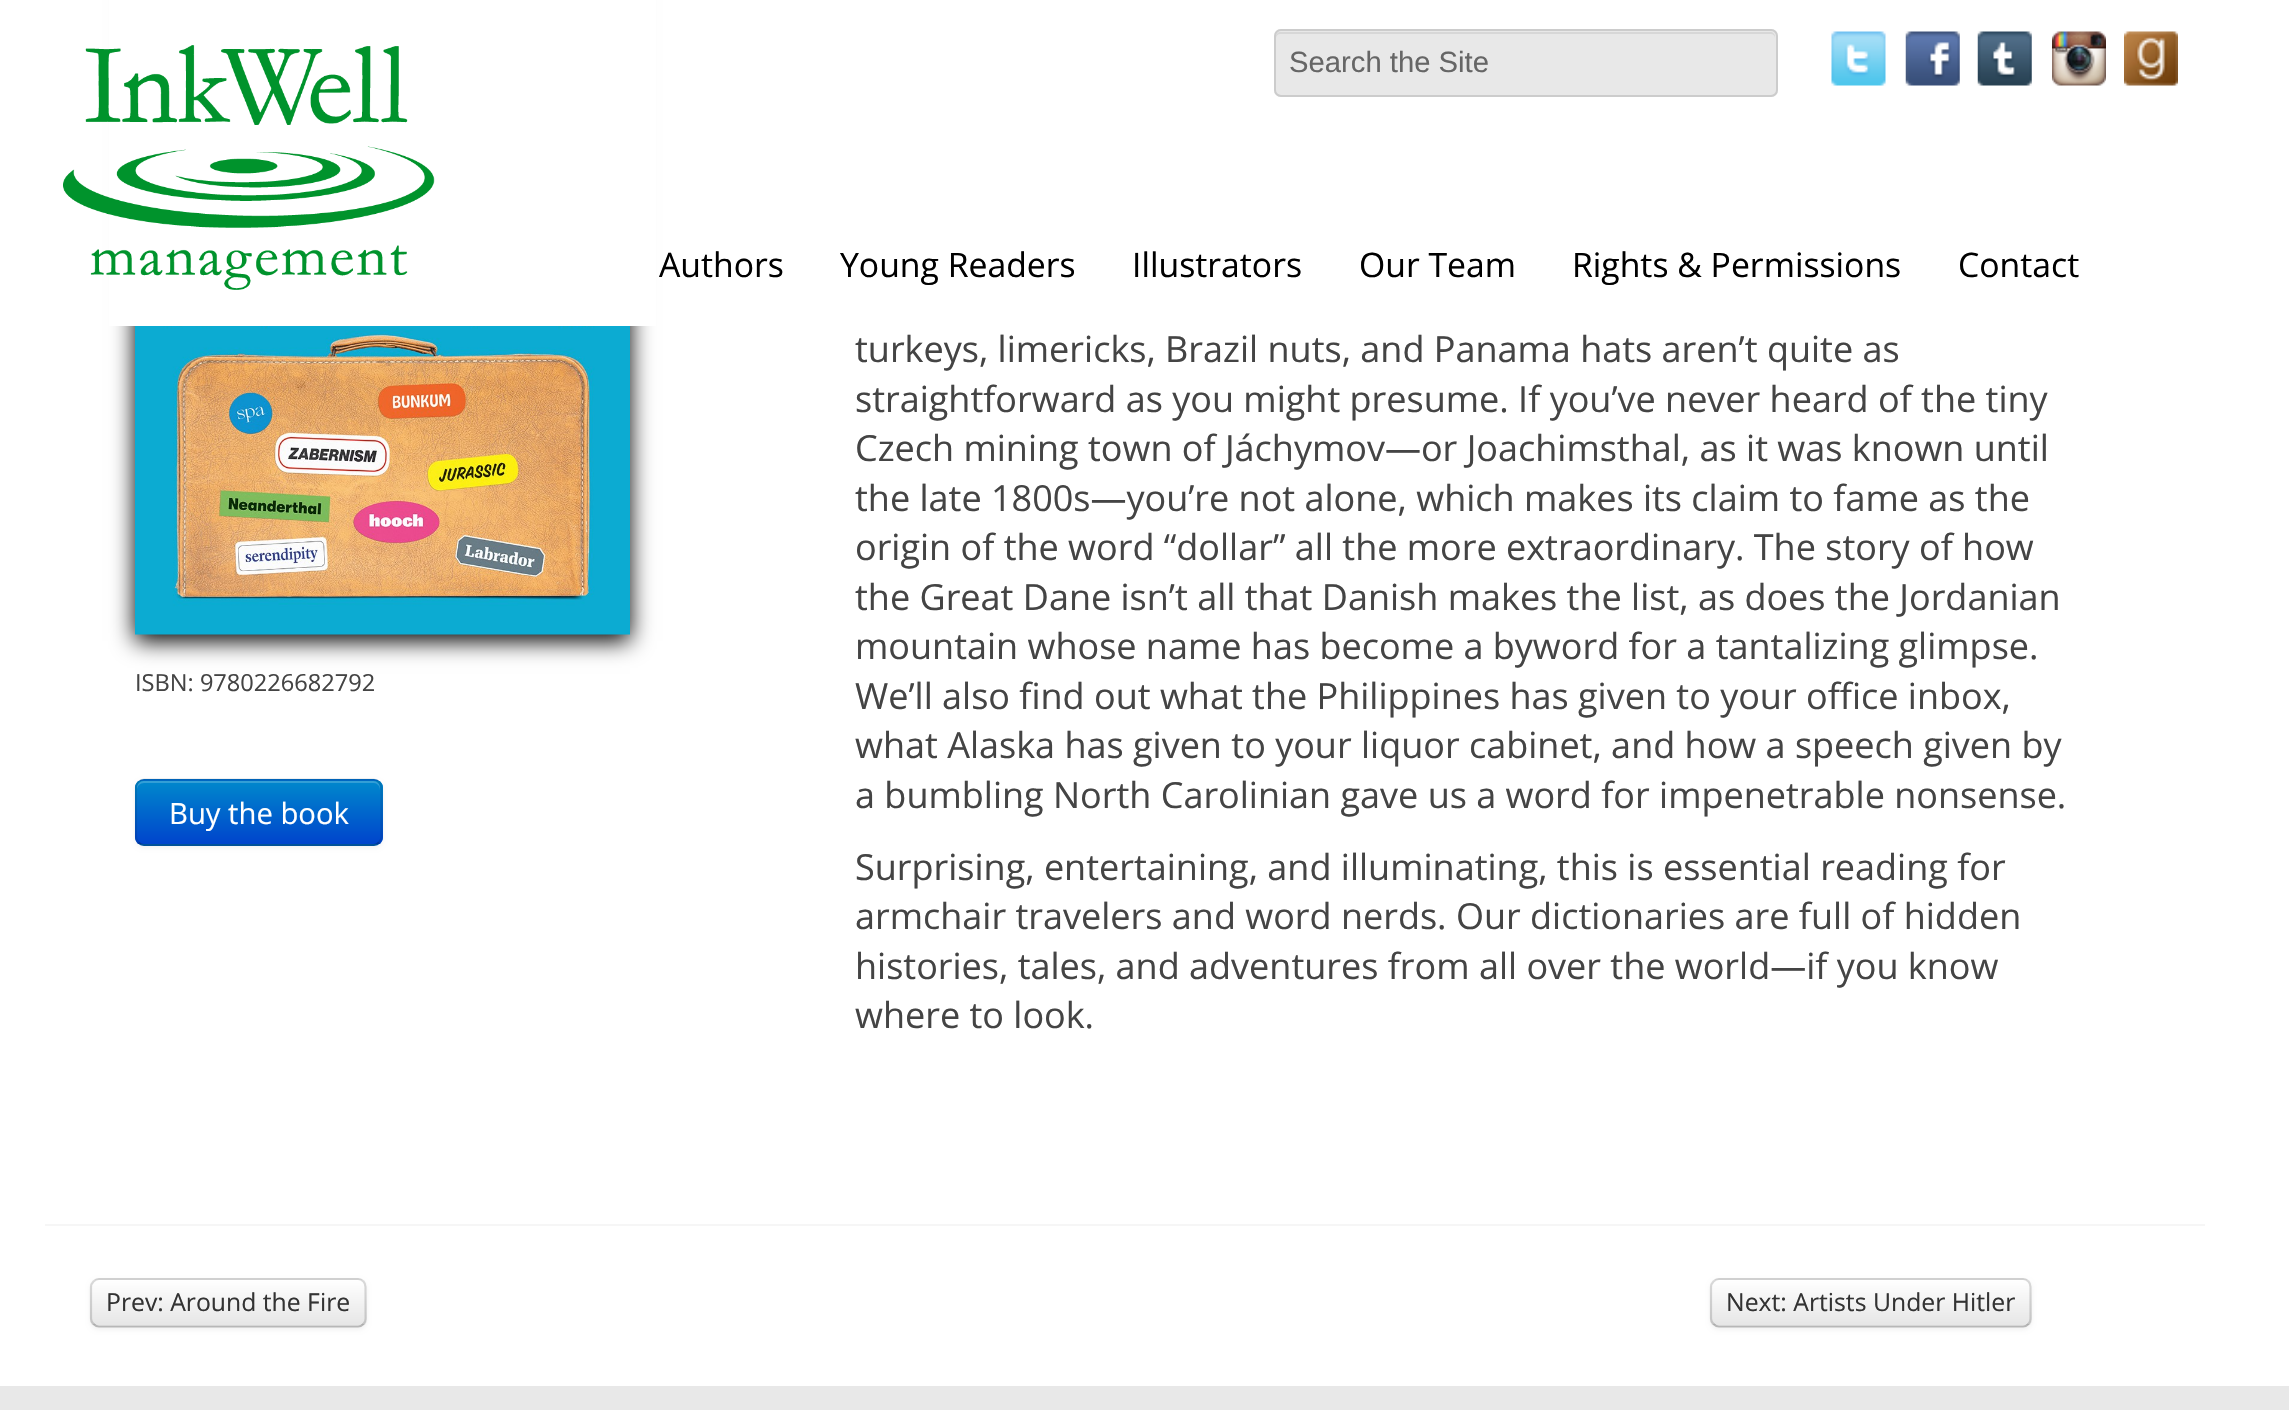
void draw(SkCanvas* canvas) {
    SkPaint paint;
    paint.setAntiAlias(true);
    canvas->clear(0xFFFFFFFF);
    paint.setColor(0xFF000000);
    paint.setMaskFilter(SkMaskFilter::MakeBlur(kNormal_SkBlurStyle, 11));
    canvas->drawRect(SkRect::MakeXYWH(135, -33, 495, 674), paint);
    paint.setMaskFilter(nullptr);
    paint.setColor(0xFFFFFFFF);
    canvas->drawRect(SkRect::MakeXYWH(109, 0, 547, 326), paint);
    canvas->drawImageRect(SkImages::DeferredFromEncodedData(SkData::MakeFromFileName("img1.png")), SkRect::MakeXYWH(63, 45, 372, 245), SkSamplingOptions());
    paint.setColor(0xFFE8E8E8);
    canvas->drawRoundRect(SkRect::MakeXYWH(1274, 29, 504, 68), 7, 7, paint);
    paint.setColor(0xFFD7D7D7);
    canvas->drawPath(SkPathBuilder().moveTo(1280, 34).lineTo(1771, 34).cubicTo(1773, 34, 1775, 36, 1775, 38).lineTo(1775, 37).cubicTo(1775, 34, 1773, 32, 1770, 32).lineTo(1281, 32).cubicTo(1278, 32, 1276, 34, 1276, 37).lineTo(1276, 38).cubicTo(1276, 36, 1278, 34, 1280, 34).close().detach(), paint);
    paint.setStyle(SkPaint::kStroke_Style);
    paint.setStrokeWidth(2);
    paint.setColor(0xFFCCCCCC);
    canvas->drawRoundRect(SkRect::MakeXYWH(1275, 30, 502, 66), 6, 6, paint);
    SkFont font1(fontMgr->matchFamilyStyle("Liberation Sans", SkFontStyle::Normal()), 29.25f);
    font1.setSubpixel(true);
    paint.setStyle(SkPaint::kFill_Style);
    paint.setColor(0xFF666666);
    canvas->drawString("Search the Site", 1289, 72, font1, paint);
    canvas->drawImageRect(SkImages::DeferredFromEncodedData(SkData::MakeFromFileName("img2.png")), SkRect::MakeXYWH(1831, 31, 55, 55), SkSamplingOptions());
    canvas->drawImageRect(SkImages::DeferredFromEncodedData(SkData::MakeFromFileName("img3.png")), SkRect::MakeXYWH(1905, 31, 55, 55), SkSamplingOptions());
    canvas->drawImageRect(SkImages::DeferredFromEncodedData(SkData::MakeFromFileName("img4.png")), SkRect::MakeXYWH(1977, 31, 55, 55), SkSamplingOptions());
    canvas->drawImageRect(SkImages::DeferredFromEncodedData(SkData::MakeFromFileName("img5.png")), SkRect::MakeXYWH(2052, 31, 54, 55), SkSamplingOptions());
    canvas->drawImageRect(SkImages::DeferredFromEncodedData(SkData::MakeFromFileName("img6.png")), SkRect::MakeXYWH(2124, 31, 54, 55), SkSamplingOptions());
    SkFont font2(fontMgr->matchFamilyStyle("Open Sans", SkFontStyle::Normal()), 33.75f);
    font2.setSubpixel(true);
    paint.setColor(0xFF000000);
    canvas->drawString("Authors", 659, 277, font2, paint);
    canvas->drawString("Young Readers", 840, 277, font2, paint);
    canvas->drawString("Illustrators", 1132, 277, font2, paint);
    canvas->drawString("Our Team", 1359, 277, font2, paint);
    canvas->drawString("Rights & Permissions", 1572, 277, font2, paint);
    canvas->drawString("Contact", 1958, 277, font2, paint);
    canvas->drawImageRect(SkImages::DeferredFromEncodedData(SkData::MakeFromFileName("img7.png")), SkRect::MakeXYWH(135, 326, 495, 309), SkSamplingOptions());
    SkFont font3(fontMgr->matchFamilyStyle("Open Sans", SkFontStyle::Normal()), 23.6f);
    font3.setSubpixel(true);
    paint.setColor(0xFF444444);
    canvas->drawString("ISBN: 9780226682792", 135, 691, font3, paint);
    paint.setColor(0x0D000000);
    paint.setMaskFilter(SkMaskFilter::MakeBlur(kNormal_SkBlurStyle, 2));
    canvas->drawRoundRect(SkRect::MakeXYWH(135, 781, 248, 67), 9, 9, paint);
    paint.setMaskFilter(nullptr);
    paint.setColor(0xFF006DCC);
    canvas->drawRoundRect(SkRect::MakeXYWH(135, 779, 248, 67), 9, 9, paint);
    canvas->save();
    canvas->clipPath(SkPathBuilder().moveTo(144, 779).lineTo(374, 779).cubicTo(379, 779, 383, 783, 383, 788).lineTo(383, 837).cubicTo(383, 842, 379, 846, 374, 846).lineTo(144, 846).cubicTo(139, 846, 135, 842, 135, 837).lineTo(135, 788).cubicTo(135, 783, 139, 779, 144, 779).close().detach(), true);
    {
        const SkColor colors[] = {0xFF0088CC, 0xFF0044CC};
        const float stops[] = {0, 1};
        const SkPoint ends[] = {{259, 781}, {259, 844}};
        paint.setShader(SkGradientShader::MakeLinear(ends, colors, stops, 2, SkTileMode::kClamp));
        paint.setAlpha(255);
    }
    canvas->drawRect(SkRect::MakeXYWH(135, 781, 248, 63), paint);
    canvas->restore();
    paint.setShader(nullptr);
    paint.setColor(0x33FFFFFF);
    canvas->drawPath(SkPathBuilder().moveTo(144, 783).lineTo(374, 783).cubicTo(377, 783, 380, 786, 380, 790).lineTo(380, 788).cubicTo(380, 784, 377, 781, 373, 781).lineTo(144, 781).cubicTo(140, 781, 137, 784, 137, 788).lineTo(137, 790).cubicTo(137, 786, 140, 783, 144, 783).close().detach(), paint);
    paint.setStyle(SkPaint::kStroke_Style);
    paint.setStrokeWidth(2.2f);
    paint.setColor(0x40000000);
    canvas->drawPath(SkPathBuilder().moveTo(379, 842.5f).cubicTo(377.5f, 844, 375.5f, 845, 373.5f, 845).lineTo(144, 845).cubicTo(142, 845, 140, 844, 138.5f, 842.5f).detach(), paint);
    paint.setColor(0x1A000000);
    canvas->drawPath(SkPathBuilder().moveTo(138.5f, 842.5f).cubicTo(137, 841, 136, 839, 136, 837).lineTo(136, 787.5f).cubicTo(136, 785.5f, 137, 783.5f, 138.5f, 782).cubicTo(140, 780.5f, 142, 779.5f, 144, 779.5f).lineTo(373.5f, 779.5f).cubicTo(375.5f, 779.5f, 377.5f, 780.5f, 379, 782).cubicTo(380.5f, 783.5f, 381.5f, 785.5f, 381.5f, 787.5f).lineTo(381.5f, 837).cubicTo(381.5f, 839, 380.5f, 841, 379, 842.5f).detach(), paint);
    SkFont font4(fontMgr->matchFamilyStyle("Open Sans", SkFontStyle::Normal()), 29.25f);
    font4.setSubpixel(true);
    paint.setStyle(SkPaint::kFill_Style);
    paint.setColor(0xFFFFFFFF);
    canvas->drawString("Buy the book", 169, 824, font4, paint);
    SkFont font5(fontMgr->matchFamilyStyle("Open Sans", SkFontStyle::Normal()), 36);
    font5.setSubpixel(true);
    paint.setColor(0xFF444444);
    canvas->drawString("turkeys, limericks, Brazil nuts, and Panama hats aren’t quite as", 855, 362, font5, paint);
    canvas->drawString("straightforward as you might presume. If you’ve never heard of the tiny", 855, 412, font5, paint);
    canvas->drawString("Czech mining town of Jáchymov—or Joachimsthal, as it was known until", 855, 461, font5, paint);
    canvas->drawString("the late 1800s—you’re not alone, which makes its claim to fame as the", 855, 511, font5, paint);
    canvas->drawString("origin of the word “dollar” all the more extraordinary. The story of how", 855, 560, font5, paint);
    canvas->drawString("the Great Dane isn’t all that Danish makes the list, as does the Jordanian", 855, 610, font5, paint);
    canvas->drawString("mountain whose name has become a byword for a tantalizing glimpse.", 855, 659, font5, paint);
    canvas->drawString("We’ll also find out what the Philippines has given to your office inbox,", 855, 709, font5, paint);
    canvas->drawString("what Alaska has given to your liquor cabinet, and how a speech given by", 855, 758, font5, paint);
    canvas->drawString("a bumbling North Carolinian gave us a word for impenetrable nonsense.", 855, 808, font5, paint);
    canvas->drawString("Surprising, entertaining, and illuminating, this is essential reading for", 855, 880, font5, paint);
    canvas->drawString("armchair travelers and word nerds. Our dictionaries are full of hidden", 855, 929, font5, paint);
    canvas->drawString("histories, tales, and adventures from all over the world—if you know", 855, 979, font5, paint);
    canvas->drawString("where to look.", 855, 1028, font5, paint);
    paint.setColor(0xFFF6F6F6);
    canvas->drawRect(SkRect::MakeXYWH(45, 1224, 2160, 2), paint);
    paint.setColor(0x0D000000);
    paint.setMaskFilter(SkMaskFilter::MakeBlur(kNormal_SkBlurStyle, 2));
    canvas->drawRoundRect(SkRect::MakeXYWH(90, 1280, 277, 50), 9, 9, paint);
    paint.setMaskFilter(nullptr);
    paint.setColor(0xFFF5F5F5);
    canvas->drawRoundRect(SkRect::MakeXYWH(90, 1278, 277, 50), 9, 9, paint);
    canvas->save();
    canvas->clipPath(SkPathBuilder().moveTo(99, 1278).lineTo(358, 1278).cubicTo(363, 1278, 367, 1282, 367, 1287).lineTo(367, 1319).cubicTo(367, 1324, 363, 1328, 358, 1328).lineTo(99, 1328).cubicTo(94, 1328, 90, 1324, 90, 1319).lineTo(90, 1287).cubicTo(90, 1282, 94, 1278, 99, 1278).close().detach(), true);
    {
        const SkColor colors[] = {0xFFFFFFFF, 0xFFE6E6E6};
        const float stops[] = {0, 1};
        const SkPoint ends[] = {{228, 1280}, {228, 1325}};
        paint.setShader(SkGradientShader::MakeLinear(ends, colors, stops, 2, SkTileMode::kClamp));
        paint.setAlpha(255);
    }
    canvas->drawRect(SkRect::MakeXYWH(90, 1280, 277, 45), paint);
    canvas->restore();
    paint.setShader(nullptr);
    paint.setColor(0x33FFFFFF);
    canvas->drawPath(SkPathBuilder().moveTo(99, 1282).lineTo(358, 1282).cubicTo(366, 1282, 364, 1296, 364, 1300).lineTo(364, 1322).cubicTo(365, 1321, 365, 1319, 365, 1318).lineTo(365, 1287).cubicTo(365, 1283, 362, 1280, 358, 1280).lineTo(99, 1280).cubicTo(95, 1280, 92, 1283, 92, 1287).lineTo(92, 1289).cubicTo(92, 1286, 95, 1282, 99, 1282).close().detach(), paint);
    paint.setStyle(SkPaint::kStroke_Style);
    paint.setColor(0x40000000);
    canvas->drawPath(SkPathBuilder().moveTo(363.5f, 1324).cubicTo(362, 1325.5f, 360, 1326.5f, 358, 1326.5f).lineTo(99, 1326.5f).cubicTo(97, 1326.5f, 95, 1325.5f, 93.5f, 1324).detach(), paint);
    paint.setColor(0x26000000);
    canvas->drawPath(SkPathBuilder().moveTo(93.5f, 1324).cubicTo(92, 1322.5f, 91, 1320.5f, 91, 1318.5f).lineTo(91, 1287).cubicTo(91, 1285, 92, 1283, 93.5f, 1281.5f).cubicTo(95, 1280, 97, 1279, 99, 1279).lineTo(358, 1279).cubicTo(360, 1279, 362, 1280, 363.5f, 1281.5f).cubicTo(365, 1283, 365.5f, 1285, 365.5f, 1287).lineTo(365.5f, 1318.5f).cubicTo(365.5f, 1320.5f, 365, 1322.5f, 363.5f, 1324).detach(), paint);
    SkFont font6(fontMgr->matchFamilyStyle("Open Sans", SkFontStyle::Normal()), 24.75f);
    font6.setSubpixel(true);
    paint.setStyle(SkPaint::kFill_Style);
    paint.setColor(0xFF333333);
    canvas->drawString("Prev: Around the Fire", 106, 1311, font6, paint);
    paint.setColor(0x0D000000);
    paint.setMaskFilter(SkMaskFilter::MakeBlur(kNormal_SkBlurStyle, 2));
    canvas->drawRoundRect(SkRect::MakeXYWH(1710, 1280, 322, 50), 9, 9, paint);
    paint.setMaskFilter(nullptr);
    paint.setColor(0xFFF5F5F5);
    canvas->drawRoundRect(SkRect::MakeXYWH(1710, 1278, 322, 50), 9, 9, paint);
    canvas->save();
    canvas->clipPath(SkPathBuilder().moveTo(1719, 1278).lineTo(2023, 1278).cubicTo(2028, 1278, 2032, 1282, 2032, 1287).lineTo(2032, 1319).cubicTo(2032, 1324, 2028, 1328, 2023, 1328).lineTo(1719, 1328).cubicTo(1714, 1328, 1710, 1324, 1710, 1319).lineTo(1710, 1287).cubicTo(1710, 1282, 1714, 1278, 1719, 1278).close().detach(), true);
    {
        const SkColor colors[] = {0xFFFFFFFF, 0xFFE6E6E6};
        const float stops[] = {0, 1};
        const SkPoint ends[] = {{1871, 1280}, {1871, 1325}};
        paint.setShader(SkGradientShader::MakeLinear(ends, colors, stops, 2, SkTileMode::kClamp));
        paint.setAlpha(255);
    }
    canvas->drawRect(SkRect::MakeXYWH(1710, 1280, 322, 45), paint);
    canvas->restore();
    paint.setStyle(SkPaint::kStroke_Style);
    paint.setShader(nullptr);
    paint.setColor(0x40000000);
    canvas->drawPath(SkPathBuilder().moveTo(2028.5f, 1324).cubicTo(2027, 1325.5f, 2025, 1326.5f, 2023, 1326.5f).lineTo(1719, 1326.5f).cubicTo(1717, 1326.5f, 1715, 1325.5f, 1713.5f, 1324).detach(), paint);
    paint.setColor(0x26000000);
    canvas->drawPath(SkPathBuilder().moveTo(1713.5f, 1324).cubicTo(1712, 1322.5f, 1711, 1320.5f, 1711, 1318.5f).lineTo(1711, 1287).cubicTo(1711, 1285, 1712, 1283, 1713.5f, 1281.5f).cubicTo(1715, 1280, 1717, 1279, 1719, 1279).lineTo(2023, 1279).cubicTo(2025, 1279, 2027, 1280, 2028.5f, 1281.5f).cubicTo(2030, 1283, 2030.5f, 1285, 2030.5f, 1287).lineTo(2030.5f, 1318.5f).cubicTo(2030.5f, 1320.5f, 2030, 1322.5f, 2028.5f, 1324).detach(), paint);
    paint.setStyle(SkPaint::kFill_Style);
    paint.setColor(0xFF333333);
    canvas->drawString("Next: Artists Under Hitler", 1726, 1311, font6, paint);
    paint.setColor(0xFFE8E8E8);
    canvas->drawRect(SkRect::MakeXYWH(0, 1386, 2289, 24), paint);
}
